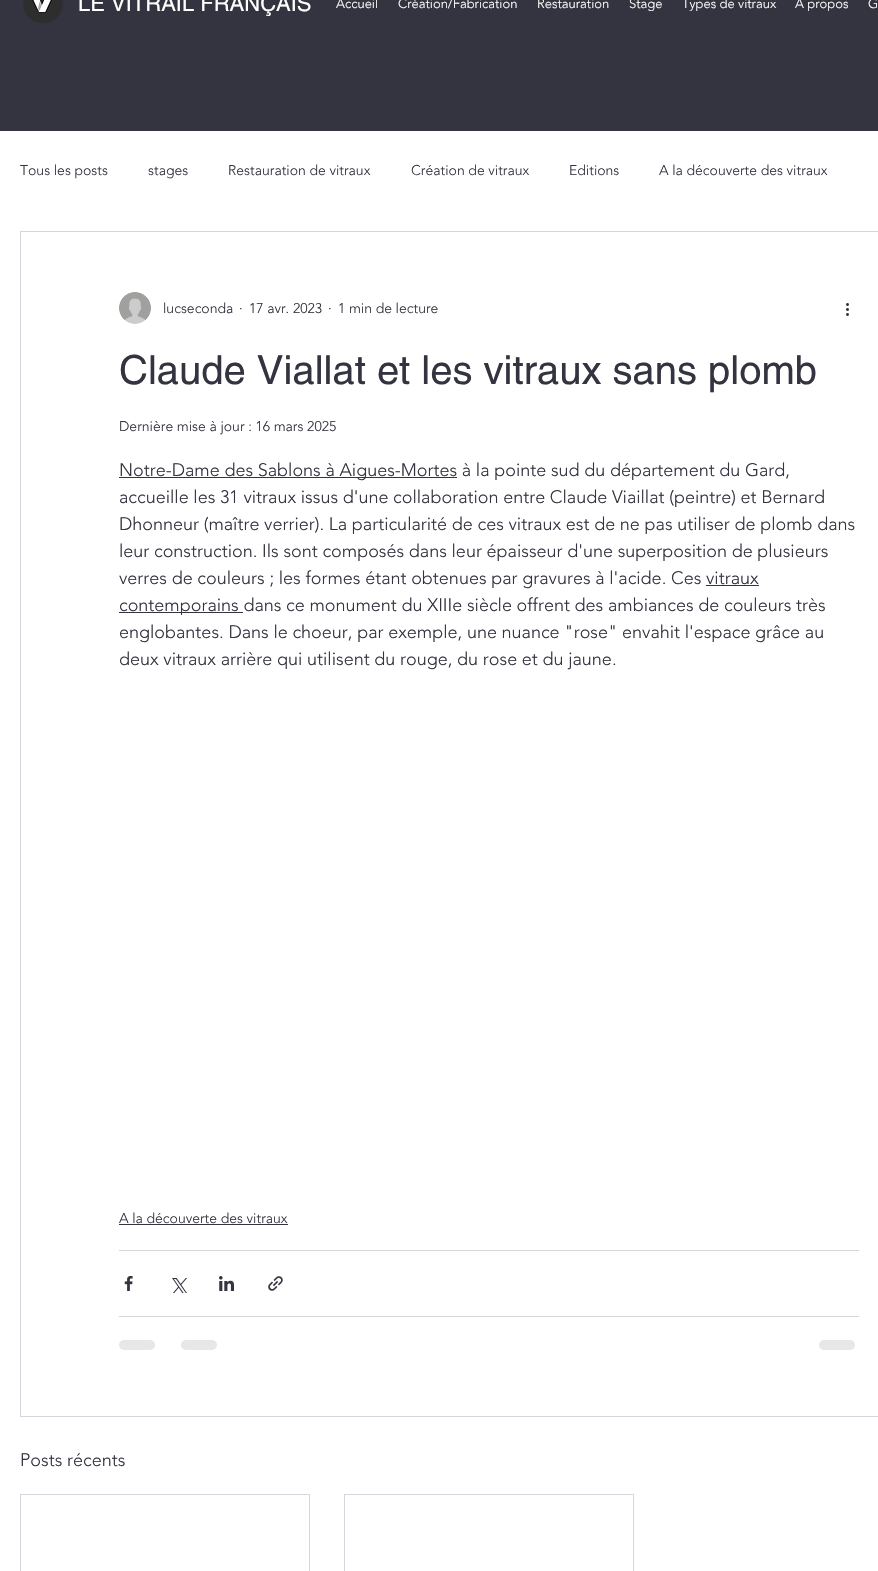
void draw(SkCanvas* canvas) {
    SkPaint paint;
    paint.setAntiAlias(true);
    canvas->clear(0xFFFFFFFF);
    paint.setColor(0xFF33343F);
    canvas->drawRect(SkRect::MakeXYWH(0, 0, 878, 131), paint);
    canvas->drawImageRect(SkImages::DeferredFromEncodedData(SkData::MakeFromFileName("img1.png")), SkRect::MakeXYWH(23, 0, 40, 24), SkSamplingOptions());
    SkFont font1(fontMgr->matchFamilyStyle("helvetica", SkFontStyle::Normal()), 22);
    font1.setSubpixel(true);
    paint.setColor(0xFFFFFFFF);
    canvas->drawString("LE VITRAIL FRANÇAIS", 78, 11, font1, paint);
    SkFont font2(fontMgr->matchFamilyStyle("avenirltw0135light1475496", SkFontStyle(300, SkFontStyle::kNormal_Width, SkFontStyle::kUpright_Slant)), 13);
    font2.setSubpixel(true);
    canvas->drawString("Accueil", 336, 8, font2, paint);
    canvas->drawString("Création/Fabrication", 398, 8, font2, paint);
    canvas->drawString("Restauration", 537, 8, font2, paint);
    canvas->drawString("Stage", 629, 8, font2, paint);
    canvas->drawString("Types de vitraux", 682, 8, font2, paint);
    canvas->drawString("A propos", 795, 8, font2, paint);
    canvas->drawString("G", 868, 8, font2, paint);
    SkFont font3(fontMgr->matchFamilyStyle("avenirltw0135light1475496", SkFontStyle(300, SkFontStyle::kNormal_Width, SkFontStyle::kUpright_Slant)), 14);
    font3.setSubpixel(true);
    paint.setColor(0xFF33343F);
    canvas->drawString("Tous les posts", 20, 175, font3, paint);
    canvas->drawString("stages", 148, 175, font3, paint);
    canvas->drawString("Restauration de vitraux", 228, 175, font3, paint);
    canvas->drawString("Création de vitraux", 411, 175, font3, paint);
    canvas->drawString("Editions", 569, 175, font3, paint);
    canvas->drawString("A la découverte des vitraux", 659, 175, font3, paint);
    paint.setStyle(SkPaint::kStroke_Style);
    paint.setStrokeWidth(1);
    paint.setColor(0xFFD6D7DE);
    canvas->drawRect(SkRect::MakeXYWH(20.5f, 231.5f, 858, 1185), paint);
    canvas->drawImageRect(SkImages::DeferredFromEncodedData(SkData::MakeFromFileName("img2.png")), SkRect::MakeXYWH(119, 292, 32, 32), SkSamplingOptions());
    paint.setStyle(SkPaint::kFill_Style);
    paint.setColor(0xFF33343F);
    canvas->drawString("lucseconda", 163, 313, font3, paint);
    canvas->drawString("·", 239, 313, font3, paint);
    canvas->drawString("17 avr. 2023", 249, 313, font3, paint);
    canvas->drawString("·", 328, 313, font3, paint);
    canvas->drawString("1 min de lecture", 338, 313, font3, paint);
    canvas->drawImageRect(SkImages::DeferredFromEncodedData(SkData::MakeFromFileName("img3.png")), SkRect::MakeXYWH(846, 303, 3, 13), SkSamplingOptions());
    SkFont font4(fontMgr->matchFamilyStyle("helvetica", SkFontStyle::Normal()), 40);
    font4.setSubpixel(true);
    canvas->drawString("Claude Viallat et les vitraux sans plomb", 119, 384, font4, paint);
    canvas->drawString("Dernière mise à jour : 16 mars 2025", 119, 431, font3, paint);
    canvas->drawRect(SkRect::MakeXYWH(119, 477, 338, 1), paint);
    SkFont font5(fontMgr->matchFamilyStyle("avenirltw0135light1475496", SkFontStyle(300, SkFontStyle::kNormal_Width, SkFontStyle::kUpright_Slant)), 18);
    font5.setSubpixel(true);
    canvas->drawString("Notre-Dame des Sablons à Aigues-Mortes à la pointe sud du département du Gard,", 119, 476, font5, paint);
    canvas->drawString("accueille les 31 vitraux issus d'une collaboration entre Claude Viaillat (peintre) et Bernard", 119, 503, font5, paint);
    canvas->drawString("Dhonneur (maître verrier). La particularité de ces vitraux est de ne pas utiliser de plomb dans", 119, 530, font5, paint);
    canvas->drawString("leur construction. Ils sont composés dans leur épaisseur d'une superposition de plusieurs", 119, 557, font5, paint);
    canvas->drawString("verres de couleurs ; les formes étant obtenues par gravures à l'acide. Ces vitraux", 119, 584, font5, paint);
    canvas->drawRect(SkRect::MakeXYWH(119, 612, 124, 1), paint);
    canvas->drawString("contemporains dans ce monument du XIIIe siècle offrent des ambiances de couleurs très", 119, 611, font5, paint);
    canvas->drawRect(SkRect::MakeXYWH(706, 585, 53, 1), paint);
    canvas->drawString("englobantes. Dans le choeur, par exemple, une nuance \"rose\" envahit l'espace grâce au", 119, 638, font5, paint);
    canvas->drawString("deux vitraux arrière qui utilisent du rouge, du rose et du jaune.", 119, 665, font5, paint);
    canvas->drawString("A la découverte des vitraux", 119, 1223, font3, paint);
    canvas->drawRect(SkRect::MakeXYWH(119, 1224, 169, 1), paint);
    paint.setColor(0xFFD6D6D9);
    canvas->drawRect(SkRect::MakeXYWH(119, 1250, 740, 1), paint);
    canvas->drawImageRect(SkImages::DeferredFromEncodedData(SkData::MakeFromFileName("img4.png")), SkRect::MakeXYWH(124, 1276, 9, 15), SkSamplingOptions());
    canvas->drawImageRect(SkImages::DeferredFromEncodedData(SkData::MakeFromFileName("img5.png")), SkRect::MakeXYWH(172, 1278, 15, 15), SkSamplingOptions());
    canvas->drawImageRect(SkImages::DeferredFromEncodedData(SkData::MakeFromFileName("img6.png")), SkRect::MakeXYWH(219, 1276, 15, 15), SkSamplingOptions());
    canvas->drawImageRect(SkImages::DeferredFromEncodedData(SkData::MakeFromFileName("img7.png")), SkRect::MakeXYWH(268, 1276, 15, 15), SkSamplingOptions());
    canvas->drawRect(SkRect::MakeXYWH(119, 1316, 740, 1), paint);
    paint.setColor(0xFFE7E7E8);
    canvas->drawRoundRect(SkRect::MakeXYWH(119, 1340, 36, 10), 5, 5, paint);
    canvas->drawRoundRect(SkRect::MakeXYWH(181, 1340, 36, 10), 5, 5, paint);
    canvas->drawRoundRect(SkRect::MakeXYWH(819, 1340, 36, 10), 5, 5, paint);
    paint.setColor(0xFF33343F);
    canvas->drawString("Posts récents", 20, 1466, font5, paint);
    paint.setStyle(SkPaint::kStroke_Style);
    paint.setColor(0xFFD6D7DE);
    canvas->drawRect(SkRect::MakeXYWH(20.5f, 1494.5f, 289, 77), paint);
    canvas->drawRect(SkRect::MakeXYWH(344.5f, 1494.5f, 289, 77), paint);
}
